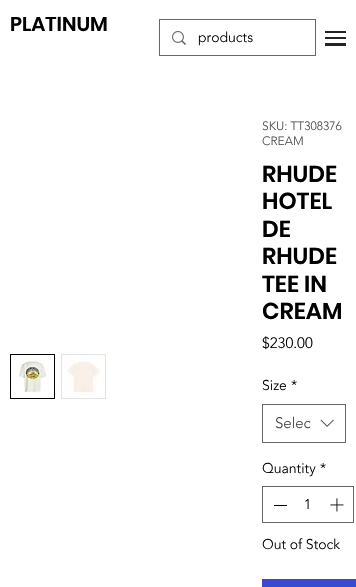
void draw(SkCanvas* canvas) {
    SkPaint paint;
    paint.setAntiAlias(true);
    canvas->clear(0xFFFFFFFF);
    SkFont font1(fontMgr->matchFamilyStyle("Poppins", SkFontStyle(600, SkFontStyle::kNormal_Width, SkFontStyle::kUpright_Slant)), 20);
    font1.setSubpixel(true);
    paint.setColor(0xFF000000);
    canvas->drawString("PLATINUM", 10, 31, font1, paint);
    paint.setStyle(SkPaint::kStroke_Style);
    paint.setStrokeWidth(1);
    paint.setColor(0xFF666666);
    canvas->drawRect(SkRect::MakeXYWH(159.5f, 19.5f, 156, 36), paint);
    canvas->drawImageRect(SkImages::DeferredFromEncodedData(SkData::MakeFromFileName("img1.png")), SkRect::MakeXYWH(172, 31, 14, 14), SkSamplingOptions());
    SkFont font2(fontMgr->matchFamilyStyle("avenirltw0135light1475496", SkFontStyle(300, SkFontStyle::kNormal_Width, SkFontStyle::kUpright_Slant)), 14);
    font2.setSubpixel(true);
    paint.setStyle(SkPaint::kFill_Style);
    paint.setColor(0xFF000000);
    canvas->drawString("products", 198, 42, font2, paint);
    paint.setColor(0xFF242323);
    canvas->drawRect(SkRect::MakeXYWH(325, 31, 21, 2), paint);
    canvas->drawRect(SkRect::MakeXYWH(325, 37, 21, 2), paint);
    canvas->drawRect(SkRect::MakeXYWH(325, 43, 21, 3), paint);
    paint.setStyle(SkPaint::kStroke_Style);
    paint.setColor(0xFF000000);
    canvas->drawRect(SkRect::MakeXYWH(10.5f, 354.5f, 44, 44), paint);
    canvas->drawImageRect(SkImages::DeferredFromEncodedData(SkData::MakeFromFileName("img2.png")), SkRect::MakeXYWH(11, 355, 43, 43), SkSamplingOptions());
    paint.setStyle(SkPaint::kFill_Style);
    paint.setColor(0xFFE3E3E3);
    canvas->drawRect(SkRect::MakeXYWH(61, 354, 45, 45), paint);
    canvas->drawImageRect(SkImages::DeferredFromEncodedData(SkData::MakeFromFileName("img3.png")), SkRect::MakeXYWH(62, 355, 43, 43), SkSamplingOptions());
    SkFont font3(fontMgr->matchFamilyStyle("avenirltw0135light1475496", SkFontStyle(300, SkFontStyle::kNormal_Width, SkFontStyle::kUpright_Slant)), 12);
    font3.setSubpixel(true);
    paint.setColor(0xFF4F4F4F);
    canvas->drawString("SKU: TT308376", 262, 130, font3, paint);
    canvas->drawString("CREAM", 262, 145, font3, paint);
    SkFont font4(fontMgr->matchFamilyStyle("Poppins", SkFontStyle(600, SkFontStyle::kNormal_Width, SkFontStyle::kUpright_Slant)), 23);
    font4.setSubpixel(true);
    paint.setColor(0xFF000000);
    canvas->drawString("RHUDE", 262, 182, font4, paint);
    canvas->drawString("HOTEL", 262, 209, font4, paint);
    canvas->drawString("DE", 262, 237, font4, paint);
    canvas->drawString("RHUDE", 262, 264, font4, paint);
    canvas->drawString("TEE IN", 262, 292, font4, paint);
    canvas->drawString("CREAM", 262, 319, font4, paint);
    SkFont font5(fontMgr->matchFamilyStyle("avenirltw0135light1475496", SkFontStyle(300, SkFontStyle::kNormal_Width, SkFontStyle::kUpright_Slant)), 15);
    font5.setSubpixel(true);
    canvas->drawString("$230.00", 262, 348, font5, paint);
    canvas->drawString("Size", 262, 390, font2, paint);
    canvas->drawString("*", 291, 390, font2, paint);
    paint.setStyle(SkPaint::kStroke_Style);
    paint.setColor(0xFF666666);
    canvas->drawRect(SkRect::MakeXYWH(262.5f, 404.5f, 83, 38), paint);
    paint.setStyle(SkPaint::kFill_Style);
    paint.setColor(0xFF444444);
    canvas->drawString("Selec", 275, 428, font5, paint);
    canvas->drawImageRect(SkImages::DeferredFromEncodedData(SkData::MakeFromFileName("img4.png")), SkRect::MakeXYWH(320, 419, 14, 8), SkSamplingOptions());
    paint.setColor(0xFF000000);
    canvas->drawString("Quantity", 262, 473, font2, paint);
    canvas->drawString("*", 320, 473, font2, paint);
    paint.setStyle(SkPaint::kStroke_Style);
    paint.setColor(0xFF666666);
    canvas->drawRect(SkRect::MakeXYWH(262.5f, 486.5f, 91, 36), paint);
    paint.setStyle(SkPaint::kFill_Style);
    paint.setColor(0xFF000000);
    canvas->drawRect(SkRect::MakeXYWH(274, 505, 13, 1), paint);
    canvas->drawString("1", 304, 509, font2, paint);
    canvas->drawImageRect(SkImages::DeferredFromEncodedData(SkData::MakeFromFileName("img5.png")), SkRect::MakeXYWH(330, 498, 14, 14), SkSamplingOptions());
    canvas->drawString("Out of Stock", 262, 549, font2, paint);
    paint.setColor(0xFF384AD3);
    canvas->drawRect(SkRect::MakeXYWH(262, 579, 94, 8), paint);
}
